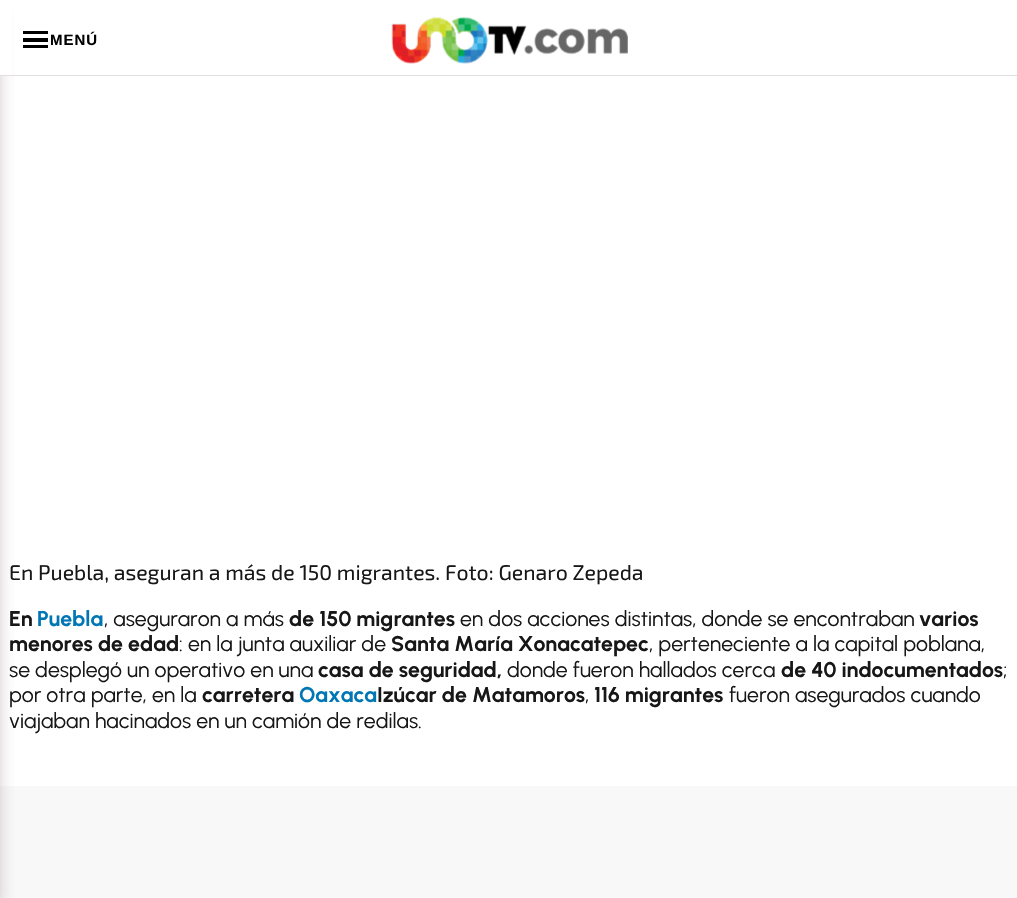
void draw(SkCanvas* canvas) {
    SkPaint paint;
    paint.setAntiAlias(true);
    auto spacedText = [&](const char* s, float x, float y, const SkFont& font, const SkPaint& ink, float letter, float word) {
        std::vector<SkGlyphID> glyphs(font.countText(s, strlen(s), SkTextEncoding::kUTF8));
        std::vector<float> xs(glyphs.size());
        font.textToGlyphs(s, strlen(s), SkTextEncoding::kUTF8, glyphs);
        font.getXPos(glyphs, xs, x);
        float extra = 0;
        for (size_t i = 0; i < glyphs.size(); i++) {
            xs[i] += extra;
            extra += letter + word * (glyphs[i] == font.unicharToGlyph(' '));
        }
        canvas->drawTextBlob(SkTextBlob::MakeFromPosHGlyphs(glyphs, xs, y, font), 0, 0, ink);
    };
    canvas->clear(0xFFFFFFFF);
    paint.setColor(0xE6F7F7F7);
    canvas->drawRect(SkRect::MakeXYWH(0, 786, 1017, 112), paint);
    paint.setColor(0x4D6B5252);
    paint.setMaskFilter(SkMaskFilter::MakeBlur(kNormal_SkBlurStyle, 7.5f));
    canvas->drawRect(SkRect::MakeXYWH(-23, 8, 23, 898), paint);
    paint.setMaskFilter(nullptr);
    paint.setColor(0xFFFFFFFF);
    canvas->drawRect(SkRect::MakeXYWH(0, 0, 12, 75), paint);
    paint.setColor(0xFFE0DEDE);
    canvas->drawRect(SkRect::MakeXYWH(0, 75, 1017, 1), paint);
    paint.setColor(0xFF000000);
    canvas->drawRect(SkRect::MakeXYWH(23, 31, 25, 3), paint);
    canvas->drawRect(SkRect::MakeXYWH(23, 38, 25, 4), paint);
    canvas->drawRect(SkRect::MakeXYWH(23, 45, 25, 3), paint);
    SkFont font1(fontMgr->matchFamilyStyle("Liberation Sans", SkFontStyle::Bold()), 15);
    font1.setSubpixel(true);
    spacedText("MENÚ", 50, 45, font1, paint, 1, 0);
    canvas->drawImageRect(SkImages::DeferredFromEncodedData(SkData::MakeFromFileName("img1.png")), SkRect::MakeXYWH(391, 17, 237, 47), SkSamplingOptions());
    SkFont font2(fontMgr->matchFamilyStyle("Exo 2", SkFontStyle::Normal()), 21.25f);
    font2.setSubpixel(true);
    paint.setColor(0xFF171717);
    canvas->drawString("En Puebla, aseguran a más de 150 migrantes. Foto: Genaro Zepeda", 9, 580, font2, paint);
    SkFont font3(fontMgr->matchFamilyStyle("Urbanist", SkFontStyle::Bold()), 21.25f);
    font3.setSubpixel(true);
    canvas->drawString("En", 9, 626, font3, paint);
    paint.setColor(0xFF0076B5);
    canvas->drawString("Puebla", 37, 626, font3, paint);
    SkFont font4(fontMgr->matchFamilyStyle("Urbanist", SkFontStyle::Normal()), 21.25f);
    font4.setSubpixel(true);
    paint.setColor(0xFF171717);
    canvas->drawString(", aseguraron a más", 104, 626, font4, paint);
    canvas->drawString("de 150 migrantes", 289, 626, font3, paint);
    canvas->drawString("en dos acciones distintas, donde se encontraban", 460, 626, font4, paint);
    canvas->drawString("varios", 919, 626, font3, paint);
    canvas->drawString("menores de edad", 9, 651, font3, paint);
    canvas->drawString(": en la junta auxiliar de", 179, 651, font4, paint);
    canvas->drawString("Santa María Xonacatepec", 391, 651, font3, paint);
    canvas->drawString(", perteneciente a la capital poblana,", 649, 651, font4, paint);
    canvas->drawString("se desplegó un operativo en una", 9, 677, font4, paint);
    canvas->drawString("casa de seguridad,", 318, 677, font3, paint);
    canvas->drawString("donde fueron hallados cerca", 507, 677, font4, paint);
    canvas->drawString("de 40 indocumentados", 781, 677, font3, paint);
    canvas->drawString(";", 1003, 677, font4, paint);
    canvas->drawString("por otra parte, en la", 9, 702, font4, paint);
    canvas->drawString("carretera", 202, 702, font3, paint);
    paint.setColor(0xFF0076B5);
    canvas->drawString("Oaxaca", 299, 702, font3, paint);
    paint.setColor(0xFF171717);
    canvas->drawString("Izúcar de Matamoros", 377, 702, font3, paint);
    canvas->drawString(",", 585, 702, font4, paint);
    canvas->drawString("116 migrantes", 594, 702, font3, paint);
    canvas->drawString("fueron asegurados cuando", 729, 702, font4, paint);
    canvas->drawString("viajaban hacinados en un camión de redilas.", 9, 728, font4, paint);
}
